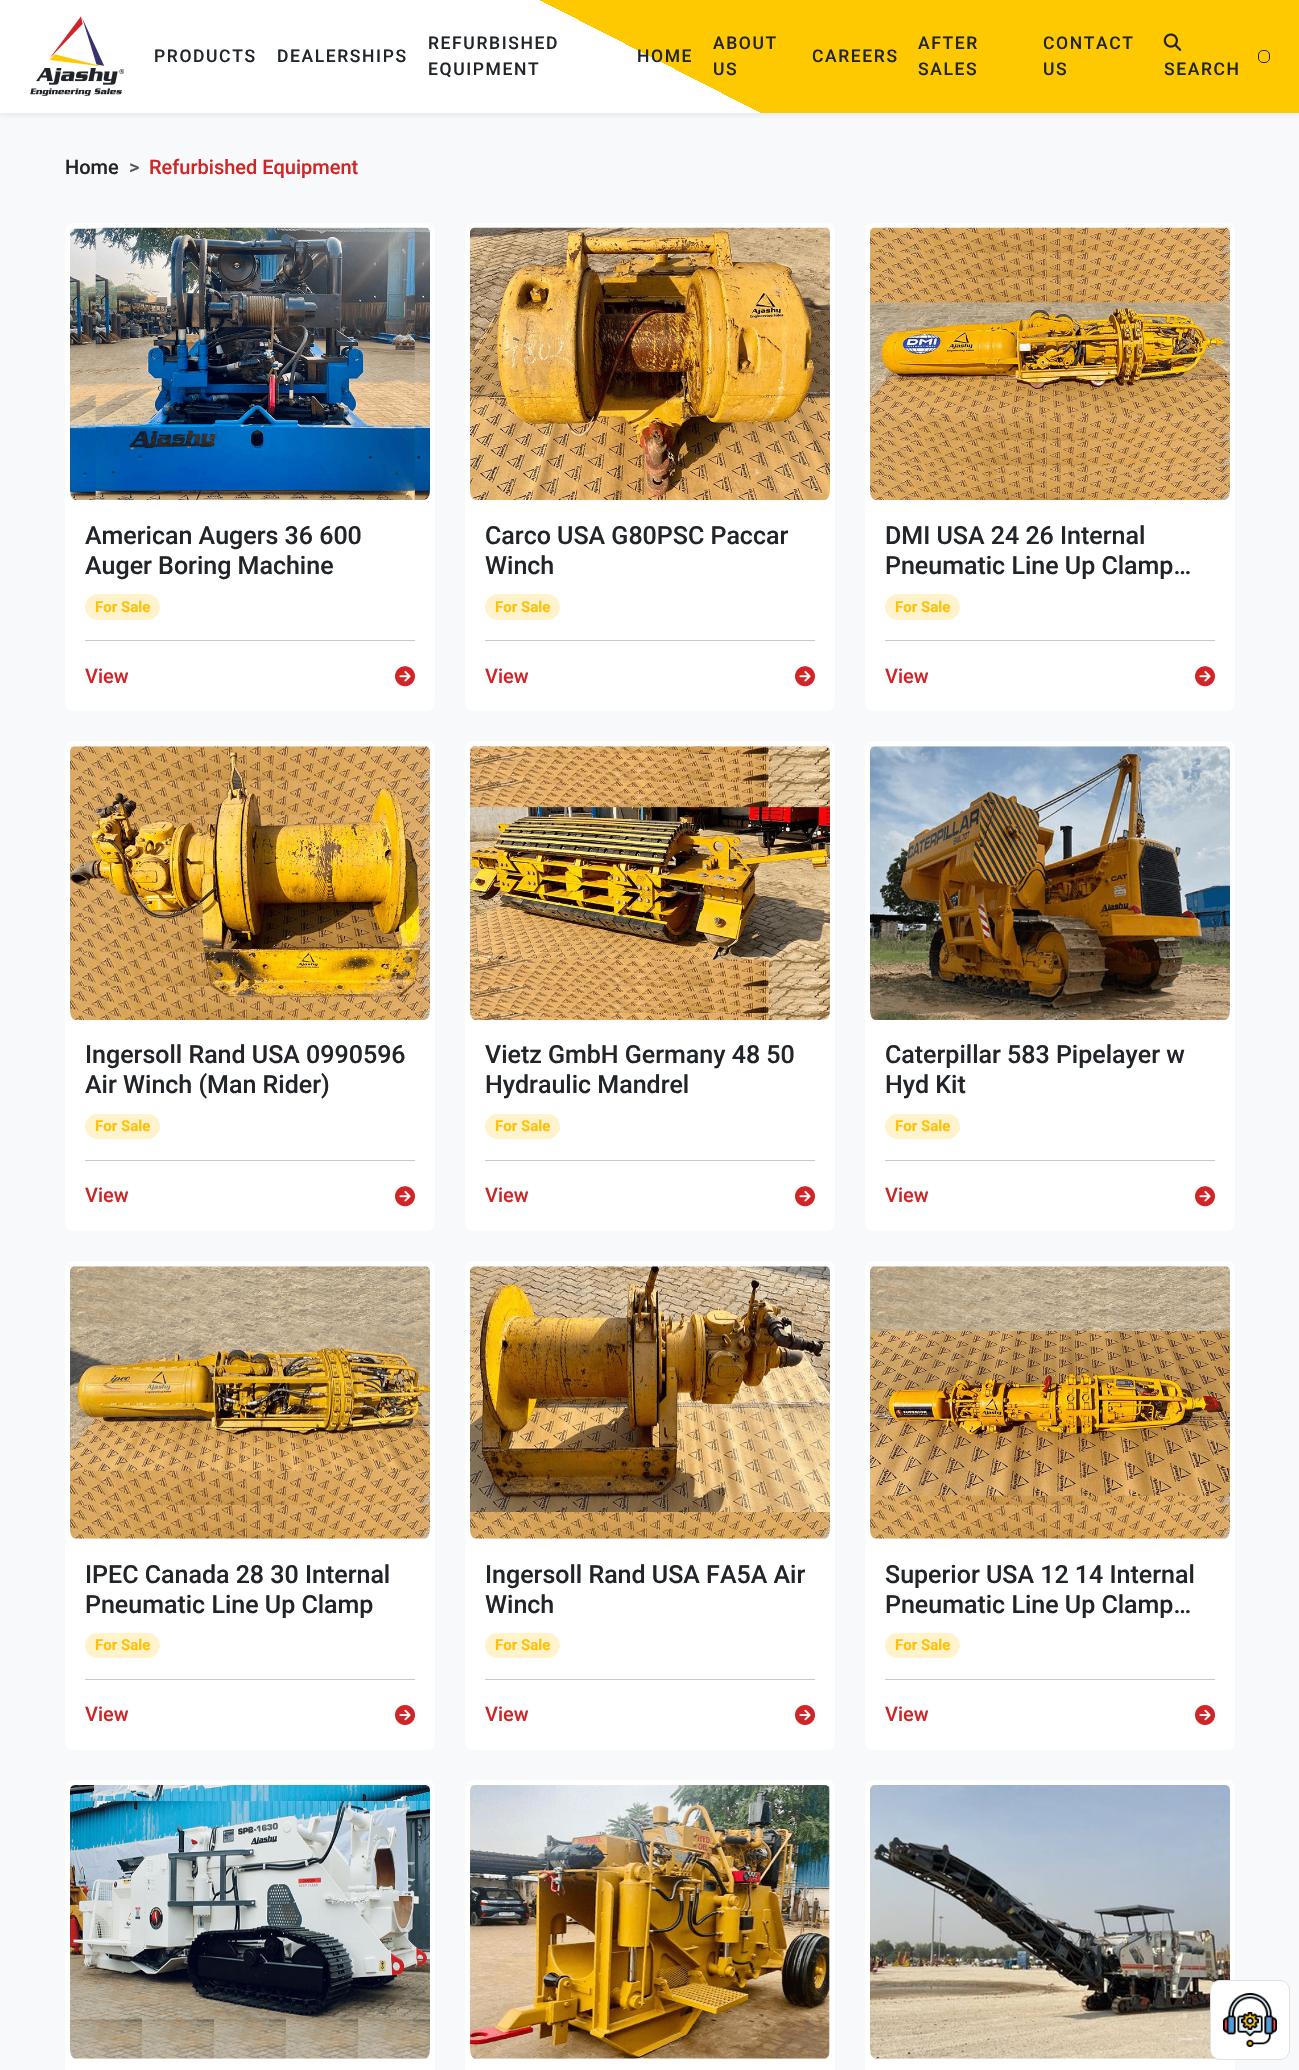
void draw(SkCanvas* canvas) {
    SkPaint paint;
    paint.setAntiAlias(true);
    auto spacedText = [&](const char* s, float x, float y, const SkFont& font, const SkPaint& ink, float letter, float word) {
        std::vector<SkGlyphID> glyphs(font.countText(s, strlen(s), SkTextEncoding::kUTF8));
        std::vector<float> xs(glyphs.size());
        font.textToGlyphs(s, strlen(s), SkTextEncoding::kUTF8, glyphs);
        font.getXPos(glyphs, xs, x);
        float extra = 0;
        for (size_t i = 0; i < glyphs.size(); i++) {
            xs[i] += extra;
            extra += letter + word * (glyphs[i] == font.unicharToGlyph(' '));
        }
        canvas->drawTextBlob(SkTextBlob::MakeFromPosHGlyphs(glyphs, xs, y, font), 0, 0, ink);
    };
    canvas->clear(0xFFF8F9FA);
    paint.setColor(0x12000000);
    paint.setMaskFilter(SkMaskFilter::MakeBlur(kNormal_SkBlurStyle, 2.5f));
    canvas->drawRect(SkRect::MakeXYWH(0, 3, 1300, 112), paint);
    paint.setMaskFilter(nullptr);
    {
        const SkColor colors[] = {0xFFFEC900, 0xFFFFFFFF};
        const float stops[] = {0.5f, 0.5f};
        const SkPoint ends[] = {{807, -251}, {493, 364}};
        paint.setShader(SkGradientShader::MakeLinear(ends, colors, stops, 2, SkTileMode::kClamp));
        paint.setAlpha(255);
    }
    canvas->drawRect(SkRect::MakeXYWH(0, 0, 1299, 113), paint);
    canvas->drawImageRect(SkImages::DeferredFromEncodedData(SkData::MakeFromFileName("img1.png")), SkRect::MakeXYWH(30, 16, 94, 80), SkSamplingOptions());
    SkFont font1(fontMgr->matchFamilyStyle("Roboto", SkFontStyle(500, SkFontStyle::kNormal_Width, SkFontStyle::kUpright_Slant)), 17.5f);
    font1.setSubpixel(true);
    paint.setShader(nullptr);
    paint.setColor(0xFF212529);
    spacedText("PRODUCTS", 154, 62, font1, paint, 1.6f, 0);
    spacedText("DEALERSHIPS", 277, 62, font1, paint, 1.6f, 0);
    spacedText("REFURBISHED", 428, 49, font1, paint, 1.6f, 0);
    spacedText("EQUIPMENT", 428, 75, font1, paint, 1.6f, 0);
    spacedText("HOME", 637, 62, font1, paint, 1.6f, 0);
    spacedText("ABOUT", 713, 49, font1, paint, 1.6f, 0);
    spacedText("US", 713, 75, font1, paint, 1.6f, 0);
    spacedText("CAREERS", 812, 62, font1, paint, 1.6f, 0);
    spacedText("AFTER", 918, 49, font1, paint, 1.6f, 0);
    spacedText("SALES", 918, 75, font1, paint, 1.6f, 0);
    spacedText("CONTACT", 1043, 49, font1, paint, 1.6f, 0);
    spacedText("US", 1043, 75, font1, paint, 1.6f, 0);
    paint.setStyle(SkPaint::kStroke_Style);
    paint.setStrokeWidth(1);
    canvas->drawRoundRect(SkRect::MakeXYWH(1258.5f, 50.5f, 11, 12), 4.5f, 4.5f, paint);
    canvas->drawImageRect(SkImages::DeferredFromEncodedData(SkData::MakeFromFileName("img2.png")), SkRect::MakeXYWH(1163, 33, 19, 18), SkSamplingOptions());
    paint.setStyle(SkPaint::kFill_Style);
    spacedText("SEARCH", 1164, 75, font1, paint, 1.6f, 0);
    SkFont font2(fontMgr->matchFamilyStyle("Roboto", SkFontStyle(500, SkFontStyle::kNormal_Width, SkFontStyle::kUpright_Slant)), 20);
    font2.setSubpixel(true);
    canvas->drawString("Home", 65, 174, font2, paint);
    paint.setColor(0xFF575A5D);
    canvas->drawString(">", 129, 174, font2, paint);
    paint.setColor(0xFFD12427);
    canvas->drawString("Refurbished Equipment", 149, 174, font2, paint);
    paint.setColor(0xFFFFFFFF);
    canvas->drawRoundRect(SkRect::MakeXYWH(65, 223, 370, 488), 8, 8, paint);
    canvas->drawImageRect(SkImages::DeferredFromEncodedData(SkData::MakeFromFileName("img3.png")), SkRect::MakeXYWH(70, 227, 360, 273), SkSamplingOptions());
    SkFont font3(fontMgr->matchFamilyStyle("Roboto", SkFontStyle(500, SkFontStyle::kNormal_Width, SkFontStyle::kUpright_Slant)), 25);
    font3.setSubpixel(true);
    paint.setColor(0xFF212529);
    canvas->drawString("American Augers 36 600", 85, 544, font3, paint);
    canvas->drawString("Auger Boring Machine", 85, 574, font3, paint);
    paint.setColor(0xFFFFF3CD);
    canvas->drawRoundRect(SkRect::MakeXYWH(85, 594, 75, 26), 13, 13, paint);
    SkFont font4(fontMgr->matchFamilyStyle("Roboto", SkFontStyle::Bold()), 15);
    font4.setSubpixel(true);
    paint.setColor(0xFFFFC107);
    canvas->drawString("For Sale", 95, 612, font4, paint);
    paint.setColor(0xFFC8C9CA);
    canvas->drawRect(SkRect::MakeXYWH(85, 640, 330, 1), paint);
    paint.setColor(0xFFD12427);
    canvas->drawString("View", 85, 683, font2, paint);
    canvas->drawImageRect(SkImages::DeferredFromEncodedData(SkData::MakeFromFileName("img4.png")), SkRect::MakeXYWH(395, 666, 20, 21), SkSamplingOptions());
    paint.setColor(0xFFFFFFFF);
    canvas->drawRoundRect(SkRect::MakeXYWH(465, 223, 370, 488), 8, 8, paint);
    canvas->drawImageRect(SkImages::DeferredFromEncodedData(SkData::MakeFromFileName("img5.png")), SkRect::MakeXYWH(470, 227, 360, 273), SkSamplingOptions());
    paint.setColor(0xFF212529);
    canvas->drawString("Carco USA G80PSC Paccar", 485, 544, font3, paint);
    canvas->drawString("Winch", 485, 574, font3, paint);
    paint.setColor(0xFFFFF3CD);
    canvas->drawRoundRect(SkRect::MakeXYWH(485, 594, 75, 26), 13, 13, paint);
    paint.setColor(0xFFFFC107);
    canvas->drawString("For Sale", 495, 612, font4, paint);
    paint.setColor(0xFFC8C9CA);
    canvas->drawRect(SkRect::MakeXYWH(485, 640, 330, 1), paint);
    paint.setColor(0xFFD12427);
    canvas->drawString("View", 485, 683, font2, paint);
    canvas->drawImageRect(SkImages::DeferredFromEncodedData(SkData::MakeFromFileName("img4.png")), SkRect::MakeXYWH(795, 666, 20, 21), SkSamplingOptions());
    paint.setColor(0xFFFFFFFF);
    canvas->drawRoundRect(SkRect::MakeXYWH(865, 223, 370, 488), 8, 8, paint);
    canvas->drawImageRect(SkImages::DeferredFromEncodedData(SkData::MakeFromFileName("img6.png")), SkRect::MakeXYWH(870, 227, 360, 273), SkSamplingOptions());
    paint.setColor(0xFF212529);
    canvas->drawString("DMI USA 24 26 Internal", 885, 544, font3, paint);
    canvas->drawString("Pneumatic Line Up Clamp…", 885, 574, font3, paint);
    paint.setColor(0xFFFFF3CD);
    canvas->drawRoundRect(SkRect::MakeXYWH(885, 594, 75, 26), 13, 13, paint);
    paint.setColor(0xFFFFC107);
    canvas->drawString("For Sale", 895, 612, font4, paint);
    paint.setColor(0xFFC8C9CA);
    canvas->drawRect(SkRect::MakeXYWH(885, 640, 330, 1), paint);
    paint.setColor(0xFFD12427);
    canvas->drawString("View", 885, 683, font2, paint);
    canvas->drawImageRect(SkImages::DeferredFromEncodedData(SkData::MakeFromFileName("img4.png")), SkRect::MakeXYWH(1195, 666, 20, 21), SkSamplingOptions());
    paint.setColor(0xFFFFFFFF);
    canvas->drawRoundRect(SkRect::MakeXYWH(65, 741, 370, 490), 8, 8, paint);
    canvas->drawImageRect(SkImages::DeferredFromEncodedData(SkData::MakeFromFileName("img7.png")), SkRect::MakeXYWH(70, 746, 360, 274), SkSamplingOptions());
    paint.setColor(0xFF212529);
    canvas->drawString("Ingersoll Rand USA 0990596", 85, 1063, font3, paint);
    canvas->drawString("Air Winch (Man Rider)", 85, 1093, font3, paint);
    paint.setColor(0xFFFFF3CD);
    canvas->drawRoundRect(SkRect::MakeXYWH(85, 1114, 75, 25), 12.5f, 12.5f, paint);
    paint.setColor(0xFFFFC107);
    canvas->drawString("For Sale", 95, 1131, font4, paint);
    paint.setColor(0xFFC8C9CA);
    canvas->drawRect(SkRect::MakeXYWH(85, 1160, 330, 1), paint);
    paint.setColor(0xFFD12427);
    canvas->drawString("View", 85, 1202, font2, paint);
    canvas->drawImageRect(SkImages::DeferredFromEncodedData(SkData::MakeFromFileName("img4.png")), SkRect::MakeXYWH(395, 1186, 20, 21), SkSamplingOptions());
    paint.setColor(0xFFFFFFFF);
    canvas->drawRoundRect(SkRect::MakeXYWH(465, 741, 370, 490), 8, 8, paint);
    canvas->drawImageRect(SkImages::DeferredFromEncodedData(SkData::MakeFromFileName("img8.png")), SkRect::MakeXYWH(470, 746, 360, 274), SkSamplingOptions());
    paint.setColor(0xFF212529);
    canvas->drawString("Vietz GmbH Germany 48 50", 485, 1063, font3, paint);
    canvas->drawString("Hydraulic Mandrel", 485, 1093, font3, paint);
    paint.setColor(0xFFFFF3CD);
    canvas->drawRoundRect(SkRect::MakeXYWH(485, 1114, 75, 25), 12.5f, 12.5f, paint);
    paint.setColor(0xFFFFC107);
    canvas->drawString("For Sale", 495, 1131, font4, paint);
    paint.setColor(0xFFC8C9CA);
    canvas->drawRect(SkRect::MakeXYWH(485, 1160, 330, 1), paint);
    paint.setColor(0xFFD12427);
    canvas->drawString("View", 485, 1202, font2, paint);
    canvas->drawImageRect(SkImages::DeferredFromEncodedData(SkData::MakeFromFileName("img4.png")), SkRect::MakeXYWH(795, 1186, 20, 21), SkSamplingOptions());
    paint.setColor(0xFFFFFFFF);
    canvas->drawRoundRect(SkRect::MakeXYWH(865, 741, 370, 490), 8, 8, paint);
    canvas->drawImageRect(SkImages::DeferredFromEncodedData(SkData::MakeFromFileName("img9.png")), SkRect::MakeXYWH(870, 746, 360, 274), SkSamplingOptions());
    paint.setColor(0xFF212529);
    canvas->drawString("Caterpillar 583 Pipelayer w", 885, 1063, font3, paint);
    canvas->drawString("Hyd Kit", 885, 1093, font3, paint);
    paint.setColor(0xFFFFF3CD);
    canvas->drawRoundRect(SkRect::MakeXYWH(885, 1114, 75, 25), 12.5f, 12.5f, paint);
    paint.setColor(0xFFFFC107);
    canvas->drawString("For Sale", 895, 1131, font4, paint);
    paint.setColor(0xFFC8C9CA);
    canvas->drawRect(SkRect::MakeXYWH(885, 1160, 330, 1), paint);
    paint.setColor(0xFFD12427);
    canvas->drawString("View", 885, 1202, font2, paint);
    canvas->drawImageRect(SkImages::DeferredFromEncodedData(SkData::MakeFromFileName("img4.png")), SkRect::MakeXYWH(1195, 1186, 20, 21), SkSamplingOptions());
    paint.setColor(0xFFFFFFFF);
    canvas->drawRoundRect(SkRect::MakeXYWH(65, 1261, 370, 489), 8, 8, paint);
    canvas->drawImageRect(SkImages::DeferredFromEncodedData(SkData::MakeFromFileName("img10.png")), SkRect::MakeXYWH(70, 1266, 360, 273), SkSamplingOptions());
    paint.setColor(0xFF212529);
    canvas->drawString("IPEC Canada 28 30 Internal", 85, 1583, font3, paint);
    canvas->drawString("Pneumatic Line Up Clamp", 85, 1613, font3, paint);
    paint.setColor(0xFFFFF3CD);
    canvas->drawRoundRect(SkRect::MakeXYWH(85, 1633, 75, 25), 12.5f, 12.5f, paint);
    paint.setColor(0xFFFFC107);
    canvas->drawString("For Sale", 95, 1650, font4, paint);
    paint.setColor(0xFFC8C9CA);
    canvas->drawRect(SkRect::MakeXYWH(85, 1679, 330, 1), paint);
    paint.setColor(0xFFD12427);
    canvas->drawString("View", 85, 1721, font2, paint);
    canvas->drawImageRect(SkImages::DeferredFromEncodedData(SkData::MakeFromFileName("img11.png")), SkRect::MakeXYWH(395, 1705, 20, 20), SkSamplingOptions());
    paint.setColor(0xFFFFFFFF);
    canvas->drawRoundRect(SkRect::MakeXYWH(465, 1261, 370, 489), 8, 8, paint);
    canvas->drawImageRect(SkImages::DeferredFromEncodedData(SkData::MakeFromFileName("img12.png")), SkRect::MakeXYWH(470, 1266, 360, 273), SkSamplingOptions());
    paint.setColor(0xFF212529);
    canvas->drawString("Ingersoll Rand USA FA5A Air", 485, 1583, font3, paint);
    canvas->drawString("Winch", 485, 1613, font3, paint);
    paint.setColor(0xFFFFF3CD);
    canvas->drawRoundRect(SkRect::MakeXYWH(485, 1633, 75, 25), 12.5f, 12.5f, paint);
    paint.setColor(0xFFFFC107);
    canvas->drawString("For Sale", 495, 1650, font4, paint);
    paint.setColor(0xFFC8C9CA);
    canvas->drawRect(SkRect::MakeXYWH(485, 1679, 330, 1), paint);
    paint.setColor(0xFFD12427);
    canvas->drawString("View", 485, 1721, font2, paint);
    canvas->drawImageRect(SkImages::DeferredFromEncodedData(SkData::MakeFromFileName("img11.png")), SkRect::MakeXYWH(795, 1705, 20, 20), SkSamplingOptions());
    paint.setColor(0xFFFFFFFF);
    canvas->drawRoundRect(SkRect::MakeXYWH(865, 1261, 370, 489), 8, 8, paint);
    canvas->drawImageRect(SkImages::DeferredFromEncodedData(SkData::MakeFromFileName("img13.png")), SkRect::MakeXYWH(870, 1266, 360, 273), SkSamplingOptions());
    paint.setColor(0xFF212529);
    canvas->drawString("Superior USA 12 14 Internal", 885, 1583, font3, paint);
    canvas->drawString("Pneumatic Line Up Clamp…", 885, 1613, font3, paint);
    paint.setColor(0xFFFFF3CD);
    canvas->drawRoundRect(SkRect::MakeXYWH(885, 1633, 75, 25), 12.5f, 12.5f, paint);
    paint.setColor(0xFFFFC107);
    canvas->drawString("For Sale", 895, 1650, font4, paint);
    paint.setColor(0xFFC8C9CA);
    canvas->drawRect(SkRect::MakeXYWH(885, 1679, 330, 1), paint);
    paint.setColor(0xFFD12427);
    canvas->drawString("View", 885, 1721, font2, paint);
    canvas->drawImageRect(SkImages::DeferredFromEncodedData(SkData::MakeFromFileName("img11.png")), SkRect::MakeXYWH(1195, 1705, 20, 20), SkSamplingOptions());
    paint.setColor(0xFFFFFFFF);
    canvas->drawRoundRect(SkRect::MakeXYWH(65, 1780, 370, 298), 8, 8, paint);
    canvas->drawImageRect(SkImages::DeferredFromEncodedData(SkData::MakeFromFileName("img14.png")), SkRect::MakeXYWH(70, 1785, 360, 274), SkSamplingOptions());
    canvas->drawRoundRect(SkRect::MakeXYWH(465, 1780, 370, 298), 8, 8, paint);
    canvas->drawImageRect(SkImages::DeferredFromEncodedData(SkData::MakeFromFileName("img15.png")), SkRect::MakeXYWH(470, 1785, 360, 274), SkSamplingOptions());
    canvas->drawRoundRect(SkRect::MakeXYWH(865, 1780, 370, 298), 8, 8, paint);
    canvas->drawImageRect(SkImages::DeferredFromEncodedData(SkData::MakeFromFileName("img16.png")), SkRect::MakeXYWH(870, 1785, 360, 274), SkSamplingOptions());
    canvas->drawRoundRect(SkRect::MakeXYWH(1210.5f, 1980.5f, 79, 79), 9.5f, 9.5f, paint);
    paint.setStyle(SkPaint::kStroke_Style);
    paint.setColor(0xFFDEE2E6);
    canvas->drawRoundRect(SkRect::MakeXYWH(1210.5f, 1980.5f, 79, 79), 9.5f, 9.5f, paint);
    canvas->drawImageRect(SkImages::DeferredFromEncodedData(SkData::MakeFromFileName("img17.png")), SkRect::MakeXYWH(1223, 1993, 54, 54), SkSamplingOptions());
}
